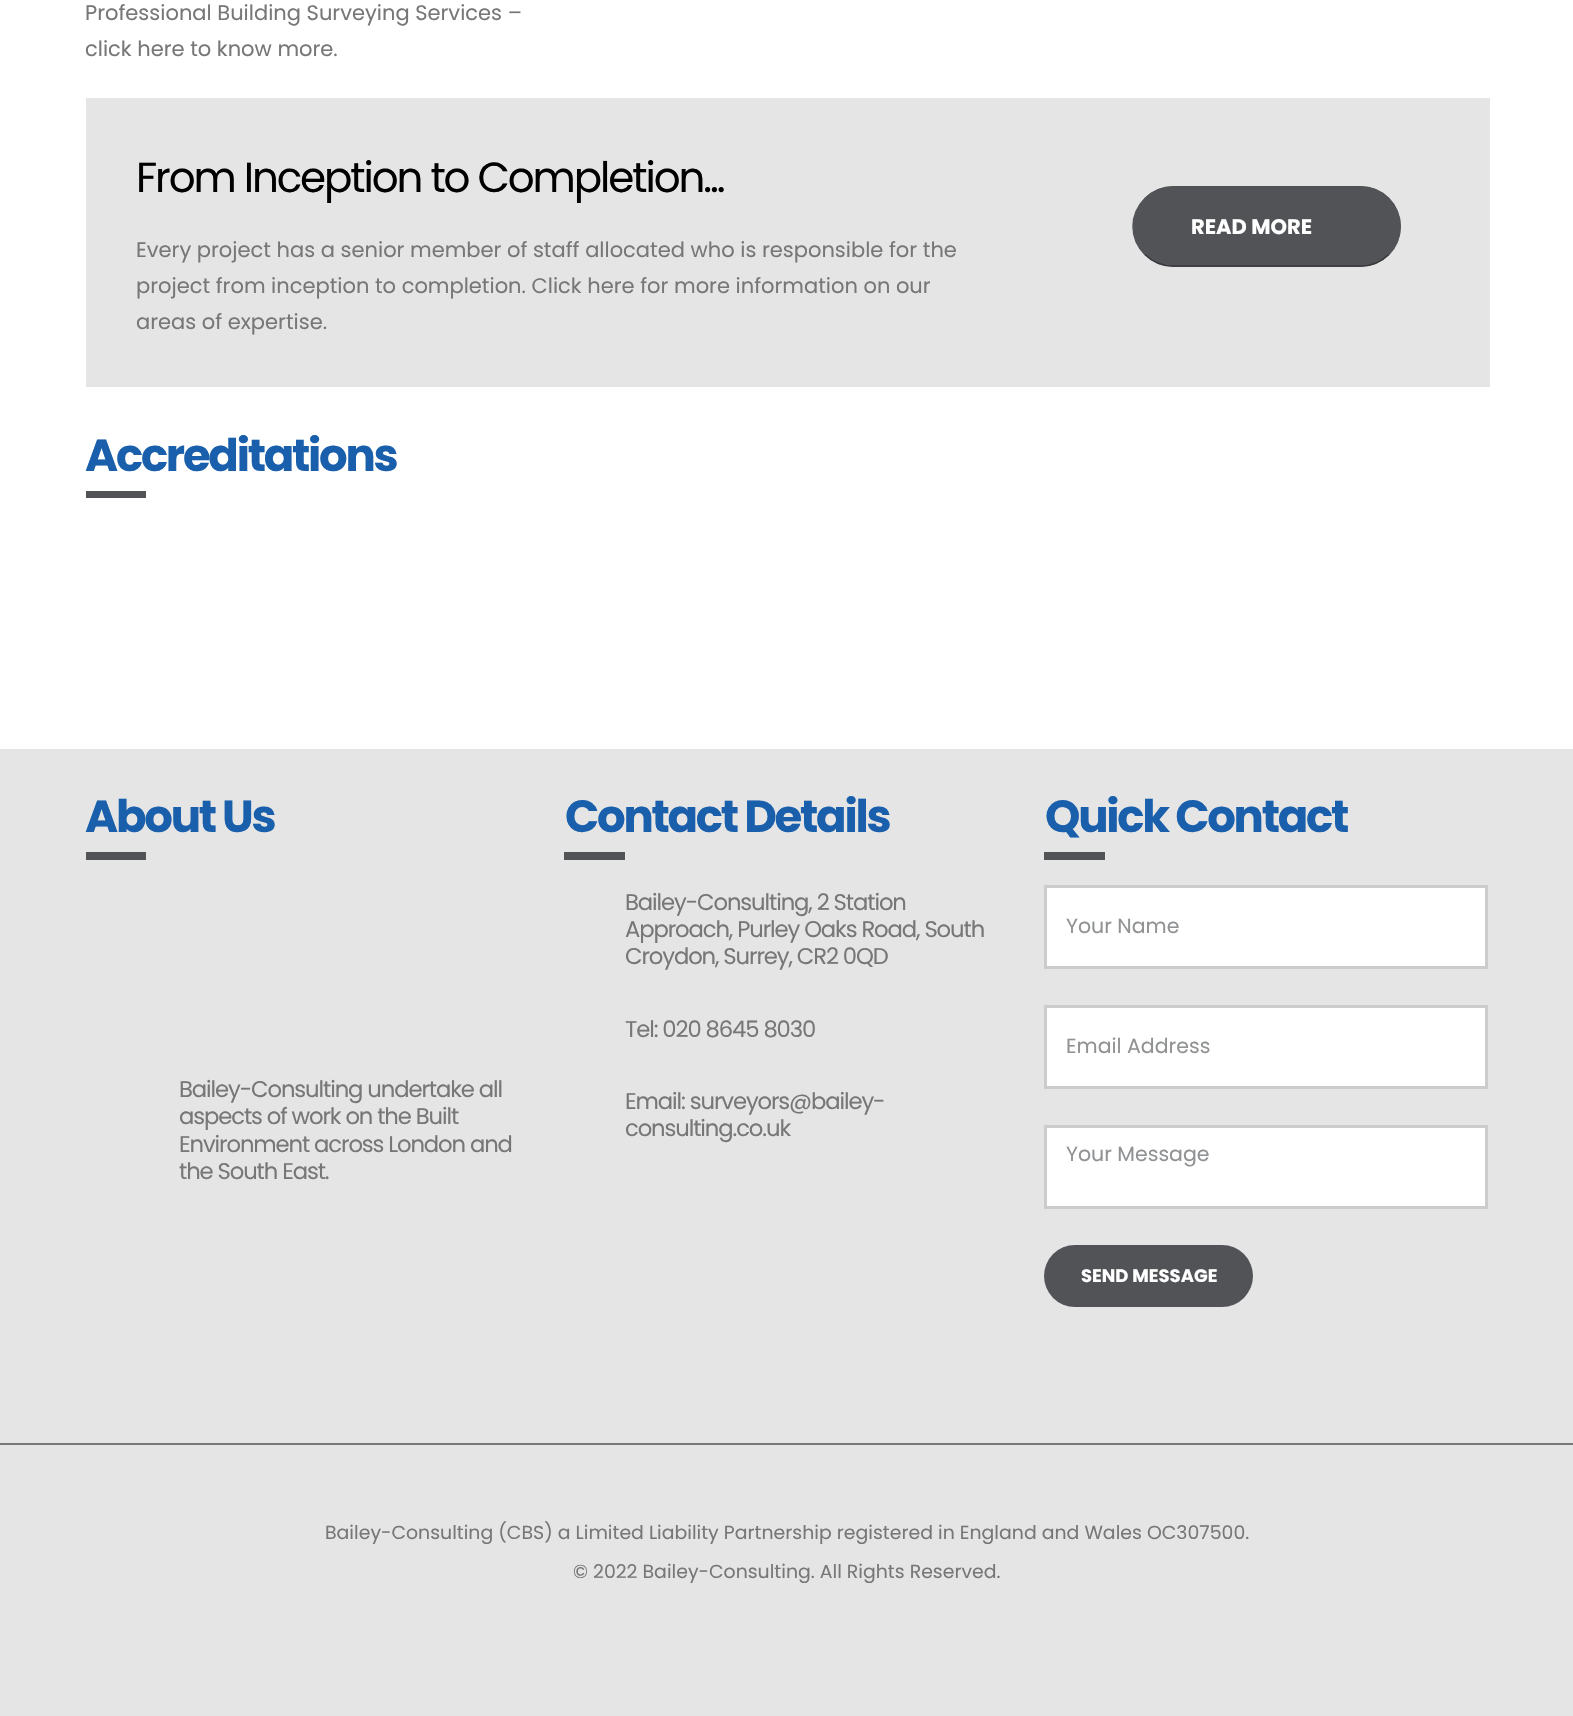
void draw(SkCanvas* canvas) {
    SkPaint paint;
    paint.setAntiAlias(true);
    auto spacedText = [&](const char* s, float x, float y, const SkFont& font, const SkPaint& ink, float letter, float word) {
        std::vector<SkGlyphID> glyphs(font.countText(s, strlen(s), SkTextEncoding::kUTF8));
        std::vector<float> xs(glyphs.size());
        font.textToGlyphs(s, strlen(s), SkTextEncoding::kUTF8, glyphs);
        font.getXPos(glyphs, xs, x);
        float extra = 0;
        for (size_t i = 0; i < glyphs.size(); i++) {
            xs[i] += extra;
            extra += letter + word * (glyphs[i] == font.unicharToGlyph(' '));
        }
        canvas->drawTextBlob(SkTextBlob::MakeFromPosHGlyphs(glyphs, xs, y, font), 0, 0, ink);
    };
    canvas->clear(0xFFFFFFFF);
    SkFont font1(fontMgr->matchFamilyStyle("Poppins", SkFontStyle::Normal()), 21);
    font1.setSubpixel(true);
    paint.setColor(0xFF777777);
    canvas->drawString("Professional Building Surveying Services –", 85, 20, font1, paint);
    canvas->drawString("click here to know more.", 85, 56, font1, paint);
    paint.setColor(0xFFE5E5E5);
    canvas->drawRect(SkRect::MakeXYWH(86, 98, 1404, 289), paint);
    SkFont font2(fontMgr->matchFamilyStyle("Poppins", SkFontStyle::Normal()), 42);
    font2.setSubpixel(true);
    paint.setColor(0xFF000000);
    spacedText("From Inception to Completion...", 136, 192, font2, paint, -2.1f, 0);
    paint.setColor(0xFF777777);
    canvas->drawString("Every project has a senior member of staff allocated who is responsible for the", 136, 257, font1, paint);
    canvas->drawString("project from inception to completion. Click here for more information on our", 136, 293, font1, paint);
    canvas->drawString("areas of expertise.", 136, 329, font1, paint);
    paint.setColor(0xFF515357);
    canvas->drawRoundRect(SkRect::MakeXYWH(1133, 186, 268, 81), 40.5f, 40.5f, paint);
    paint.setStyle(SkPaint::kStroke_Style);
    paint.setStrokeWidth(1.5f);
    paint.setColor(0xFF393A3D);
    canvas->drawPath(SkPathBuilder().moveTo(1388.5f, 254.5f).cubicTo(1381, 262, 1371, 266, 1360.5f, 266).lineTo(1173, 266).cubicTo(1162.5f, 266, 1152.5f, 262, 1145, 254.5f).detach(), paint);
    paint.setColor(0xFF515357);
    canvas->drawPath(SkPathBuilder().moveTo(1145, 254.5f).cubicTo(1137.5f, 247, 1133, 237, 1133, 226.5f).cubicTo(1133, 216, 1137.5f, 206, 1145, 198.5f).cubicTo(1152.5f, 191, 1162.5f, 187, 1173, 187).lineTo(1360.5f, 187).cubicTo(1371, 187, 1381, 191, 1388.5f, 198.5f).cubicTo(1396, 206, 1400, 216, 1400, 226.5f).cubicTo(1400, 237, 1396, 247, 1388.5f, 254.5f).detach(), paint);
    SkFont font3(fontMgr->matchFamilyStyle("Poppins", SkFontStyle::Bold()), 21);
    font3.setSubpixel(true);
    paint.setStyle(SkPaint::kFill_Style);
    paint.setColor(0xFFFFFFFF);
    canvas->drawString("READ MORE", 1191, 234, font3, paint);
    SkFont font4(fontMgr->matchFamilyStyle("Poppins", SkFontStyle::Bold()), 45);
    font4.setSubpixel(true);
    paint.setColor(0xFF195FAB);
    spacedText("Accreditations", 85, 471, font4, paint, -2.25f, 0);
    paint.setColor(0xFF515357);
    canvas->drawRect(SkRect::MakeXYWH(86, 491, 60, 4), paint);
    canvas->drawRect(SkRect::MakeXYWH(141, 491, 5, 7), paint);
    canvas->drawRect(SkRect::MakeXYWH(86, 495, 60, 3), paint);
    paint.setColor(0xFFE5E5E5);
    canvas->drawRect(SkRect::MakeXYWH(0, 749, 1573, 967), paint);
    paint.setColor(0xFF195FAB);
    spacedText("About Us", 85, 832, font4, paint, -2.25f, 0);
    paint.setColor(0xFF515357);
    canvas->drawRect(SkRect::MakeXYWH(86, 852, 60, 5), paint);
    canvas->drawRect(SkRect::MakeXYWH(141, 852, 5, 8), paint);
    canvas->drawRect(SkRect::MakeXYWH(86, 857, 60, 3), paint);
    SkFont font5(fontMgr->matchFamilyStyle("Poppins", SkFontStyle::Normal()), 22.7f);
    font5.setSubpixel(true);
    paint.setColor(0xFF777777);
    spacedText("Bailey-Consulting undertake all", 179, 1097, font5, paint, -1.1f, 0);
    spacedText("aspects of work on the Built", 179, 1124, font5, paint, -1.1f, 0);
    spacedText("Environment across London and", 179, 1152, font5, paint, -1.1f, 0);
    spacedText("the South East.", 179, 1179, font5, paint, -1.1f, 0);
    paint.setColor(0xFF195FAB);
    spacedText("Contact Details", 565, 832, font4, paint, -2.25f, 0);
    paint.setColor(0xFF515357);
    canvas->drawRect(SkRect::MakeXYWH(564, 852, 60, 5), paint);
    canvas->drawRect(SkRect::MakeXYWH(620, 852, 5, 8), paint);
    canvas->drawRect(SkRect::MakeXYWH(564, 857, 60, 3), paint);
    paint.setColor(0xFF777777);
    spacedText("Bailey-Consulting, 2 Station", 625, 910, font5, paint, -1.1f, 0);
    spacedText("Approach, Purley Oaks Road, South", 625, 937, font5, paint, -1.1f, 0);
    spacedText("Croydon, Surrey, CR2 0QD", 625, 964, font5, paint, -1.1f, 0);
    spacedText("Tel: 020 8645 8030", 625, 1037, font5, paint, -1.1f, 0);
    spacedText("Email: surveyors@bailey-", 625, 1109, font5, paint, -1.1f, 0);
    spacedText("consulting.co.uk", 625, 1136, font5, paint, -1.1f, 0);
    paint.setColor(0xFF195FAB);
    spacedText("Quick Contact", 1045, 832, font4, paint, -2.25f, 0);
    paint.setColor(0xFF515357);
    canvas->drawRect(SkRect::MakeXYWH(1044, 852, 60, 5), paint);
    canvas->drawRect(SkRect::MakeXYWH(1100, 852, 5, 8), paint);
    canvas->drawRect(SkRect::MakeXYWH(1044, 857, 60, 3), paint);
    paint.setColor(0xFFFFFFFF);
    canvas->drawRect(SkRect::MakeXYWH(1045.5f, 886.5f, 441, 81), paint);
    paint.setStyle(SkPaint::kStroke_Style);
    paint.setStrokeWidth(3);
    paint.setColor(0xFFCCCCCC);
    canvas->drawRect(SkRect::MakeXYWH(1045.5f, 886.5f, 441, 81), paint);
    SkFont font6(fontMgr->matchFamilyStyle("Poppins", SkFontStyle::Normal()), 20.5f);
    font6.setSubpixel(true);
    paint.setStyle(SkPaint::kFill_Style);
    paint.setColor(0xFF909294);
    canvas->drawString("Your Name", 1066, 933, font6, paint);
    paint.setColor(0xFFFFFFFF);
    canvas->drawRect(SkRect::MakeXYWH(1045.5f, 1006.5f, 441, 81), paint);
    paint.setStyle(SkPaint::kStroke_Style);
    paint.setColor(0xFFCCCCCC);
    canvas->drawRect(SkRect::MakeXYWH(1045.5f, 1006.5f, 441, 81), paint);
    paint.setStyle(SkPaint::kFill_Style);
    paint.setColor(0xFF909294);
    canvas->drawString("Email Address", 1066, 1053, font6, paint);
    paint.setColor(0xFFFFFFFF);
    canvas->drawRect(SkRect::MakeXYWH(1045.5f, 1126.5f, 441, 81), paint);
    paint.setStyle(SkPaint::kStroke_Style);
    paint.setColor(0xFFCCCCCC);
    canvas->drawRect(SkRect::MakeXYWH(1045.5f, 1126.5f, 441, 81), paint);
    paint.setStyle(SkPaint::kFill_Style);
    paint.setColor(0xFF909294);
    canvas->drawString("Your Message", 1066, 1161, font6, paint);
    paint.setColor(0xFF515357);
    canvas->drawRoundRect(SkRect::MakeXYWH(1044, 1245, 209, 62), 31, 31, paint);
    SkFont font7(fontMgr->matchFamilyStyle("Poppins", SkFontStyle::Bold()), 18);
    font7.setSubpixel(true);
    paint.setColor(0xFFFFFFFF);
    canvas->drawString("SEND MESSAGE", 1081, 1282, font7, paint);
    paint.setColor(0xFF777777);
    canvas->drawRect(SkRect::MakeXYWH(0, 1443, 1573, 2), paint);
    SkFont font8(fontMgr->matchFamilyStyle("Poppins", SkFontStyle::Normal()), 18.9f);
    font8.setSubpixel(true);
    canvas->drawString("Bailey-Consulting (CBS) a Limited Liability Partnership registered in England and Wales OC307500.", 325, 1539, font8, paint);
    canvas->drawString("© 2022 Bailey-Consulting. All Rights Reserved.", 573, 1578, font8, paint);
}
